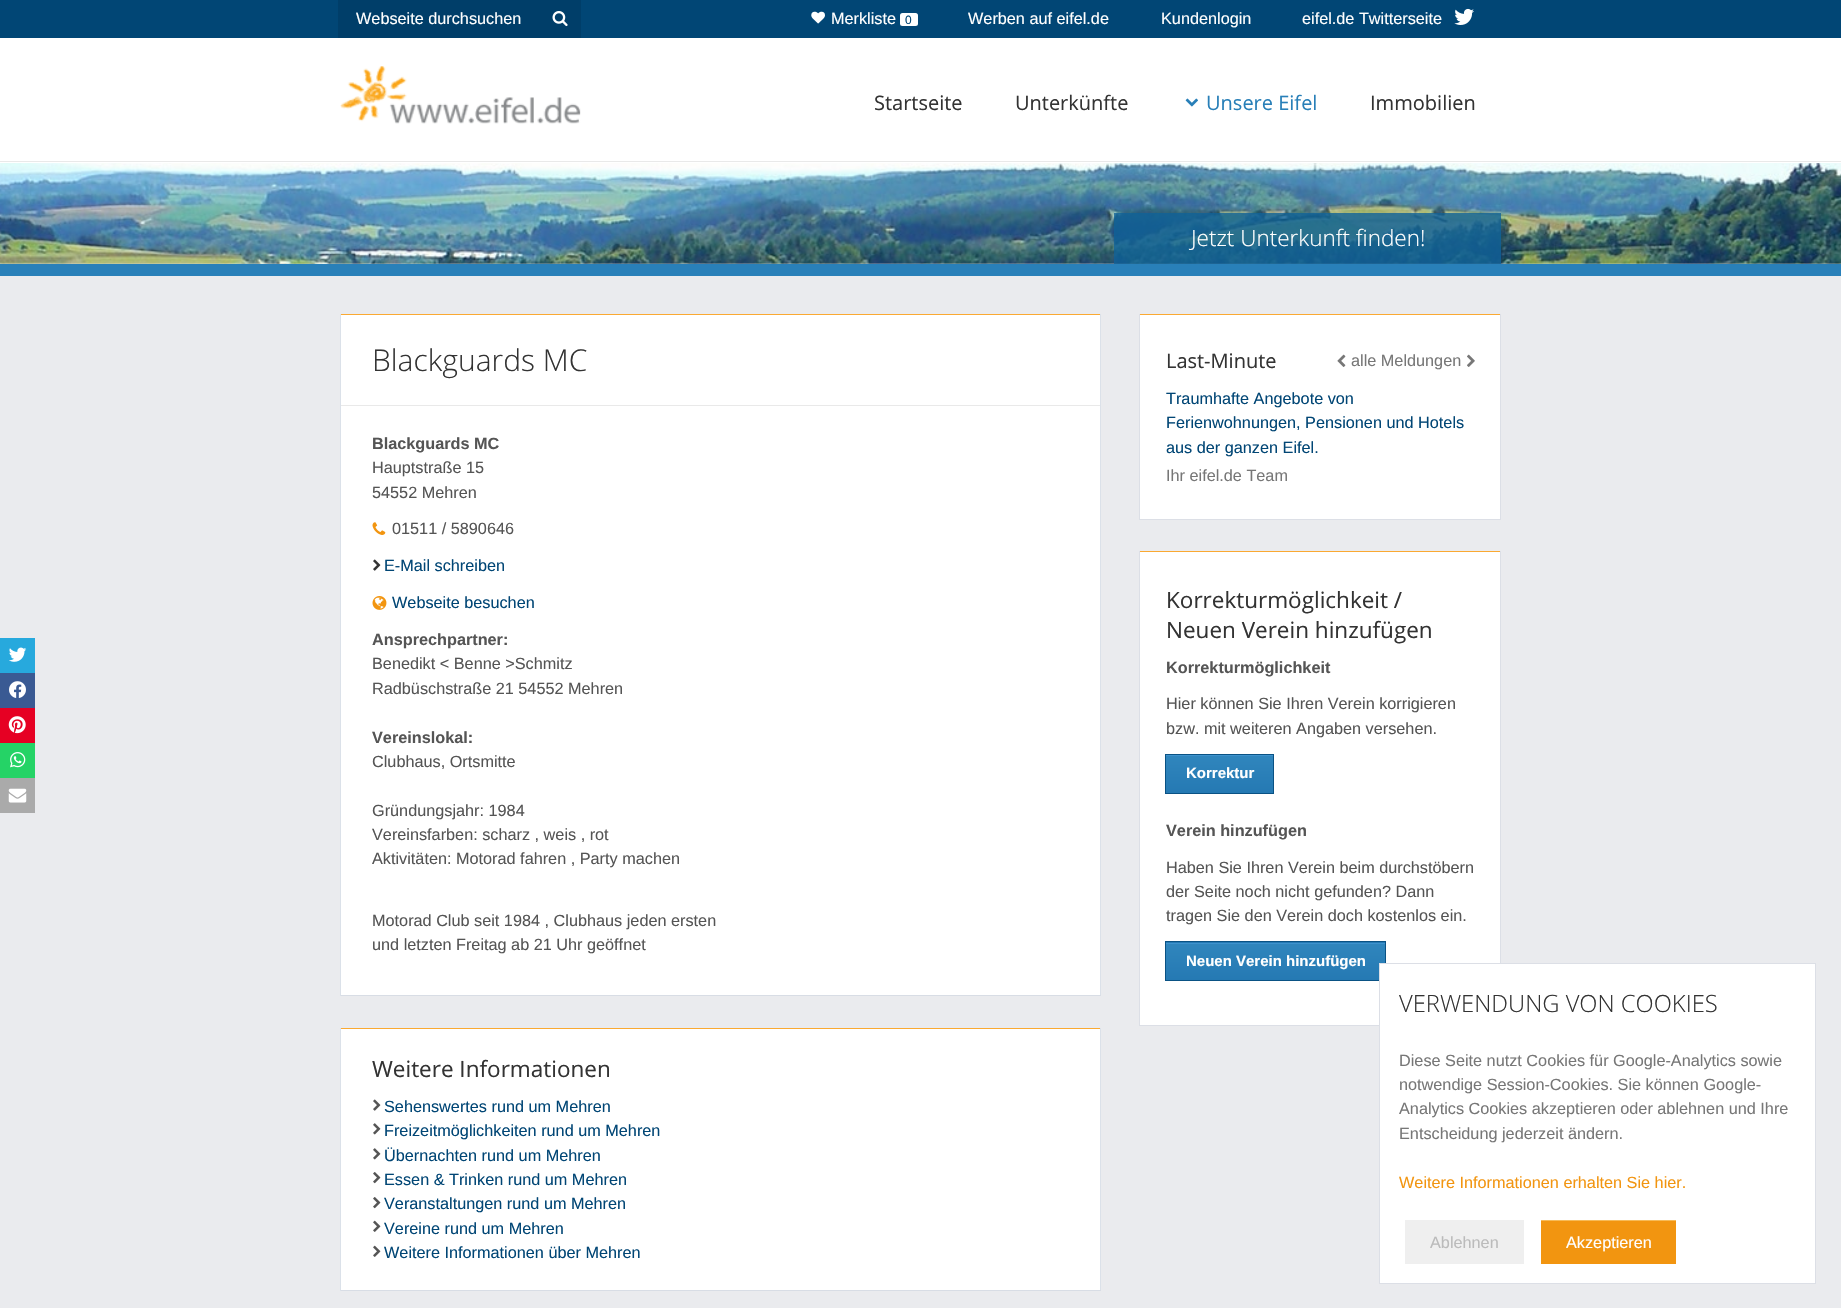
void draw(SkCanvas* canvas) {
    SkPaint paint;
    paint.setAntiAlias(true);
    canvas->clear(0xFFEAEBEE);
    paint.setColor(0xFF014675);
    canvas->drawRect(SkRect::MakeXYWH(0, 0, 1841, 38), paint);
    paint.setColor(0xFF003E69);
    canvas->drawRect(SkRect::MakeXYWH(338, 0, 243, 38), paint);
    SkFont font1(fontMgr->matchFamilyStyle("Liberation Sans", SkFontStyle::Normal()), 16.25f);
    font1.setSubpixel(true);
    paint.setColor(0xFFFFFFFF);
    canvas->drawString("Webseite durchsuchen", 356, 24, font1, paint);
    canvas->drawImageRect(SkImages::DeferredFromEncodedData(SkData::MakeFromFileName("img1.png")), SkRect::MakeXYWH(552, 11, 16, 16), SkSamplingOptions());
    canvas->drawImageRect(SkImages::DeferredFromEncodedData(SkData::MakeFromFileName("img2.png")), SkRect::MakeXYWH(811, 11, 14, 13), SkSamplingOptions());
    canvas->drawString("Merkliste", 831, 24, font1, paint);
    canvas->drawRoundRect(SkRect::MakeXYWH(900, 13, 18, 13), 2.5f, 2.5f, paint);
    SkFont font2(fontMgr->matchFamilyStyle("Liberation Sans", SkFontStyle::Normal()), 12);
    font2.setSubpixel(true);
    paint.setColor(0xFF014675);
    canvas->drawString("0", 905, 24, font2, paint);
    paint.setColor(0xFFFFFFFF);
    canvas->drawString("Werben auf eifel.de", 968, 24, font1, paint);
    canvas->drawString("Kundenlogin", 1161, 24, font1, paint);
    canvas->drawString("eifel.de Twitterseite", 1302, 24, font1, paint);
    canvas->drawImageRect(SkImages::DeferredFromEncodedData(SkData::MakeFromFileName("img3.png")), SkRect::MakeXYWH(1454, 8, 20, 17), SkSamplingOptions());
    canvas->drawRect(SkRect::MakeXYWH(0, 38, 1841, 125), paint);
    paint.setColor(0xFFE9E9E9);
    canvas->drawRect(SkRect::MakeXYWH(0, 161, 1841, 1), paint);
    canvas->drawImageRect(SkImages::DeferredFromEncodedData(SkData::MakeFromFileName("img4.png")), SkRect::MakeXYWH(340, 66, 241, 58), SkSamplingOptions());
    SkFont font3(fontMgr->matchFamilyStyle("Open Sans", SkFontStyle::Normal()), 20);
    font3.setSubpixel(true);
    paint.setColor(0xFF333333);
    canvas->drawString("Startseite", 874, 110, font3, paint);
    canvas->drawString("Unterkünfte", 1015, 110, font3, paint);
    canvas->drawImageRect(SkImages::DeferredFromEncodedData(SkData::MakeFromFileName("img5.png")), SkRect::MakeXYWH(1185, 98, 13, 9), SkSamplingOptions());
    paint.setColor(0xFF287FB8);
    canvas->drawString("Unsere Eifel", 1206, 110, font3, paint);
    paint.setColor(0xFF333333);
    canvas->drawString("Immobilien", 1370, 110, font3, paint);
    paint.setColor(0xFF2980B9);
    canvas->drawRect(SkRect::MakeXYWH(0, 264, 1841, 12), paint);
    canvas->drawImageRect(SkImages::DeferredFromEncodedData(SkData::MakeFromFileName("img6.png")), SkRect::MakeXYWH(0, 163, 1841, 101), SkSamplingOptions());
    paint.setColor(0xCC0F6297);
    canvas->drawRect(SkRect::MakeXYWH(1114, 213, 387, 51), paint);
    SkFont font4(fontMgr->matchFamilyStyle("Open Sans", SkFontStyle(300, SkFontStyle::kNormal_Width, SkFontStyle::kUpright_Slant)), 22.5f);
    font4.setSubpixel(true);
    paint.setColor(0xFFFFFFFF);
    canvas->drawString("Jetzt Unterkunft finden!", 1191, 246, font4, paint);
    paint.setColor(0xFF27A9DD);
    canvas->drawRect(SkRect::MakeXYWH(0, 638, 35, 35), paint);
    canvas->drawImageRect(SkImages::DeferredFromEncodedData(SkData::MakeFromFileName("img7.png")), SkRect::MakeXYWH(9, 647, 18, 15), SkSamplingOptions());
    paint.setColor(0xFF3A5A93);
    canvas->drawRect(SkRect::MakeXYWH(0, 673, 35, 35), paint);
    canvas->drawImageRect(SkImages::DeferredFromEncodedData(SkData::MakeFromFileName("img8.png")), SkRect::MakeXYWH(9, 681, 17, 17), SkSamplingOptions());
    paint.setColor(0xFFE60023);
    canvas->drawRect(SkRect::MakeXYWH(0, 708, 35, 35), paint);
    canvas->drawImageRect(SkImages::DeferredFromEncodedData(SkData::MakeFromFileName("img9.png")), SkRect::MakeXYWH(8, 716, 18, 18), SkSamplingOptions());
    paint.setColor(0xFF25D366);
    canvas->drawRect(SkRect::MakeXYWH(0, 743, 35, 35), paint);
    canvas->drawImageRect(SkImages::DeferredFromEncodedData(SkData::MakeFromFileName("img10.png")), SkRect::MakeXYWH(10, 752, 16, 16), SkSamplingOptions());
    paint.setColor(0xFFAAAAAA);
    canvas->drawRect(SkRect::MakeXYWH(0, 778, 35, 35), paint);
    canvas->drawImageRect(SkImages::DeferredFromEncodedData(SkData::MakeFromFileName("img11.png")), SkRect::MakeXYWH(8, 788, 19, 15), SkSamplingOptions());
    paint.setColor(0xFFFFFFFF);
    canvas->drawRect(SkRect::MakeXYWH(341, 315, 759, 680), paint);
    paint.setColor(0xFFFAA932);
    canvas->drawRect(SkRect::MakeXYWH(340, 314, 761, 1), paint);
    paint.setColor(0xFFDBE1E9);
    canvas->drawRect(SkRect::MakeXYWH(1100, 314, 1, 682), paint);
    paint.setColor(0xFFD8DDE5);
    canvas->drawRect(SkRect::MakeXYWH(340, 995, 761, 1), paint);
    paint.setColor(0xFFDBE1E9);
    canvas->drawRect(SkRect::MakeXYWH(340, 314, 1, 682), paint);
    SkFont font5(fontMgr->matchFamilyStyle("Open Sans", SkFontStyle(300, SkFontStyle::kNormal_Width, SkFontStyle::kUpright_Slant)), 30);
    font5.setSubpixel(true);
    paint.setColor(0xFF333333);
    canvas->drawString("Blackguards MC", 372, 371, font5, paint);
    paint.setColor(0xFFE9E9E9);
    canvas->drawRect(SkRect::MakeXYWH(341, 405, 759, 1), paint);
    SkFont font6(fontMgr->matchFamilyStyle("Liberation Sans", SkFontStyle::Bold()), 16.25f);
    font6.setSubpixel(true);
    paint.setColor(0xFF555555);
    canvas->drawString("Blackguards MC", 372, 449, font6, paint);
    canvas->drawString("Hauptstraße 15", 372, 473, font1, paint);
    canvas->drawString("54552 Mehren", 372, 498, font1, paint);
    canvas->drawImageRect(SkImages::DeferredFromEncodedData(SkData::MakeFromFileName("img12.png")), SkRect::MakeXYWH(372, 522, 14, 13), SkSamplingOptions());
    canvas->drawString("01511 / 5890646", 392, 534, font1, paint);
    canvas->drawImageRect(SkImages::DeferredFromEncodedData(SkData::MakeFromFileName("img13.png")), SkRect::MakeXYWH(373, 559, 8, 12), SkSamplingOptions());
    paint.setColor(0xFF014675);
    canvas->drawString("E-Mail schreiben", 384, 571, font1, paint);
    canvas->drawImageRect(SkImages::DeferredFromEncodedData(SkData::MakeFromFileName("img14.png")), SkRect::MakeXYWH(372, 596, 15, 14), SkSamplingOptions());
    canvas->drawString("Webseite besuchen", 392, 608, font1, paint);
    paint.setColor(0xFF555555);
    canvas->drawString("Ansprechpartner:", 372, 645, font6, paint);
    canvas->drawString("Benedikt < Benne >Schmitz", 372, 669, font1, paint);
    canvas->drawString("Radbüschstraße 21 54552 Mehren", 372, 694, font1, paint);
    canvas->drawString("Vereinslokal:", 372, 743, font6, paint);
    canvas->drawString("Clubhaus, Ortsmitte", 372, 767, font1, paint);
    canvas->drawString("Gründungsjahr: 1984", 372, 816, font1, paint);
    canvas->drawString("Vereinsfarben: scharz , weis , rot", 372, 840, font1, paint);
    canvas->drawString("Aktivitäten: Motorad fahren , Party machen", 372, 864, font1, paint);
    canvas->drawString("Motorad Club seit 1984 , Clubhaus jeden ersten", 372, 926, font1, paint);
    canvas->drawString("und letzten Freitag ab 21 Uhr geöffnet", 372, 950, font1, paint);
    paint.setColor(0xFFFFFFFF);
    canvas->drawRect(SkRect::MakeXYWH(341, 1029, 759, 261), paint);
    paint.setColor(0xFFFAA932);
    canvas->drawRect(SkRect::MakeXYWH(340, 1028, 761, 1), paint);
    paint.setColor(0xFFDBE1E9);
    canvas->drawRect(SkRect::MakeXYWH(1100, 1028, 1, 263), paint);
    paint.setColor(0xFFD8DDE5);
    canvas->drawRect(SkRect::MakeXYWH(340, 1290, 761, 1), paint);
    paint.setColor(0xFFDBE1E9);
    canvas->drawRect(SkRect::MakeXYWH(340, 1028, 1, 263), paint);
    SkFont font7(fontMgr->matchFamilyStyle("Open Sans", SkFontStyle::Normal()), 22.5f);
    font7.setSubpixel(true);
    paint.setColor(0xFF333333);
    canvas->drawString("Weitere Informationen", 372, 1077, font7, paint);
    canvas->drawImageRect(SkImages::DeferredFromEncodedData(SkData::MakeFromFileName("img15.png")), SkRect::MakeXYWH(373, 1099, 8, 12), SkSamplingOptions());
    paint.setColor(0xFF014675);
    canvas->drawString("Sehenswertes rund um Mehren", 384, 1112, font1, paint);
    canvas->drawImageRect(SkImages::DeferredFromEncodedData(SkData::MakeFromFileName("img16.png")), SkRect::MakeXYWH(373, 1123, 8, 12), SkSamplingOptions());
    canvas->drawString("Freizeitmöglichkeiten rund um Mehren", 384, 1136, font1, paint);
    canvas->drawImageRect(SkImages::DeferredFromEncodedData(SkData::MakeFromFileName("img16.png")), SkRect::MakeXYWH(373, 1148, 8, 12), SkSamplingOptions());
    canvas->drawString("Übernachten rund um Mehren", 384, 1161, font1, paint);
    canvas->drawImageRect(SkImages::DeferredFromEncodedData(SkData::MakeFromFileName("img17.png")), SkRect::MakeXYWH(373, 1172, 8, 12), SkSamplingOptions());
    canvas->drawString("Essen & Trinken rund um Mehren", 384, 1185, font1, paint);
    canvas->drawImageRect(SkImages::DeferredFromEncodedData(SkData::MakeFromFileName("img17.png")), SkRect::MakeXYWH(373, 1197, 8, 12), SkSamplingOptions());
    canvas->drawString("Veranstaltungen rund um Mehren", 384, 1209, font1, paint);
    canvas->drawImageRect(SkImages::DeferredFromEncodedData(SkData::MakeFromFileName("img18.png")), SkRect::MakeXYWH(373, 1220, 8, 12), SkSamplingOptions());
    canvas->drawString("Vereine rund um Mehren", 384, 1234, font1, paint);
    canvas->drawImageRect(SkImages::DeferredFromEncodedData(SkData::MakeFromFileName("img18.png")), SkRect::MakeXYWH(373, 1245, 8, 12), SkSamplingOptions());
    canvas->drawString("Weitere Informationen über Mehren", 384, 1258, font1, paint);
    paint.setColor(0xFFFFFFFF);
    canvas->drawRect(SkRect::MakeXYWH(1140, 315, 360, 204), paint);
    paint.setColor(0xFFFAA932);
    canvas->drawRect(SkRect::MakeXYWH(1139, 314, 362, 1), paint);
    paint.setColor(0xFFDCDFE6);
    canvas->drawRect(SkRect::MakeXYWH(1500, 314, 1, 206), paint);
    canvas->drawRect(SkRect::MakeXYWH(1139, 519, 362, 1), paint);
    canvas->drawRect(SkRect::MakeXYWH(1139, 314, 1, 206), paint);
    paint.setColor(0xFF333333);
    canvas->drawString("Last-Minute", 1166, 368, font3, paint);
    paint.setColor(0xFF014675);
    canvas->drawString("Traumhafte Angebote von", 1166, 404, font1, paint);
    canvas->drawString("Ferienwohnungen, Pensionen und Hotels", 1166, 428, font1, paint);
    canvas->drawString("aus der ganzen Eifel.", 1166, 453, font1, paint);
    paint.setColor(0xFF777777);
    canvas->drawString("Ihr eifel.de Team", 1166, 481, font1, paint);
    canvas->drawImageRect(SkImages::DeferredFromEncodedData(SkData::MakeFromFileName("img19.png")), SkRect::MakeXYWH(1337, 354, 9, 13), SkSamplingOptions());
    canvas->drawString("alle Meldungen", 1351, 366, font1, paint);
    canvas->drawImageRect(SkImages::DeferredFromEncodedData(SkData::MakeFromFileName("img20.png")), SkRect::MakeXYWH(1467, 354, 8, 13), SkSamplingOptions());
    paint.setColor(0xFFFFFFFF);
    canvas->drawRect(SkRect::MakeXYWH(1140, 552, 360, 473), paint);
    paint.setColor(0xFFFAA932);
    canvas->drawRect(SkRect::MakeXYWH(1139, 551, 362, 1), paint);
    paint.setColor(0xFFDCDFE6);
    canvas->drawRect(SkRect::MakeXYWH(1500, 551, 1, 412), paint);
    canvas->drawRect(SkRect::MakeXYWH(1139, 1025, 240, 1), paint);
    canvas->drawRect(SkRect::MakeXYWH(1139, 551, 1, 475), paint);
    paint.setColor(0xFF333333);
    canvas->drawString("Korrekturmöglichkeit /", 1166, 608, font7, paint);
    canvas->drawString("Neuen Verein hinzufügen", 1166, 638, font7, paint);
    paint.setColor(0xFF555555);
    canvas->drawString("Korrekturmöglichkeit", 1166, 673, font6, paint);
    canvas->drawString("Hier können Sie Ihren Verein korrigieren", 1166, 709, font1, paint);
    canvas->drawString("bzw. mit weiteren Angaben versehen.", 1166, 734, font1, paint);
    {
        const SkColor colors[] = {0xFF3086BD, 0xFF2579B3};
        const float stops[] = {0, 1};
        const SkPoint ends[] = {{1219, 755}, {1219, 793}};
        paint.setShader(SkGradientShader::MakeLinear(ends, colors, stops, 2, SkTileMode::kClamp));
        paint.setAlpha(255);
    }
    canvas->drawRect(SkRect::MakeXYWH(1166, 756, 107, 37), paint);
    paint.setShader(nullptr);
    paint.setColor(0xFF3D92CD);
    canvas->drawRect(SkRect::MakeXYWH(1166, 755, 107, 1), paint);
    paint.setStyle(SkPaint::kStroke_Style);
    paint.setStrokeWidth(1);
    paint.setColor(0xFF0A5284);
    canvas->drawRect(SkRect::MakeXYWH(1165.5f, 754.5f, 108, 39), paint);
    SkFont font8(fontMgr->matchFamilyStyle("Liberation Sans", SkFontStyle::Bold()), 15);
    font8.setSubpixel(true);
    paint.setStyle(SkPaint::kFill_Style);
    paint.setColor(0xFFFFFFFF);
    canvas->drawString("Korrektur", 1186, 778, font8, paint);
    paint.setColor(0xFF555555);
    canvas->drawString("Verein hinzufügen", 1166, 836, font6, paint);
    canvas->drawString("Haben Sie Ihren Verein beim durchstöbern", 1166, 873, font1, paint);
    canvas->drawString("der Seite noch nicht gefunden? Dann", 1166, 897, font1, paint);
    canvas->drawString("tragen Sie den Verein doch kostenlos ein.", 1166, 921, font1, paint);
    {
        const SkColor colors[] = {0xFF3086BD, 0xFF2579B3};
        const float stops[] = {0, 1};
        const SkPoint ends[] = {{1276, 905}, {1276, 943}};
        paint.setShader(SkGradientShader::MakeLinear(ends, colors, stops, 2, SkTileMode::kClamp));
        paint.setAlpha(255);
    }
    canvas->drawRect(SkRect::MakeXYWH(1165, 942, 221, 1), paint);
    {
        const SkColor colors[] = {0xFF3086BD, 0xFF2579B3};
        const float stops[] = {0, 1};
        const SkPoint ends[] = {{1276, 943}, {1276, 980}};
        paint.setShader(SkGradientShader::MakeLinear(ends, colors, stops, 2, SkTileMode::kClamp));
        paint.setAlpha(255);
    }
    canvas->drawRect(SkRect::MakeXYWH(1166, 944, 219, 36), paint);
    paint.setShader(nullptr);
    paint.setColor(0xFF3D92CD);
    canvas->drawRect(SkRect::MakeXYWH(1166, 943, 219, 1), paint);
    paint.setStyle(SkPaint::kStroke_Style);
    paint.setColor(0xFF0A5284);
    canvas->drawRect(SkRect::MakeXYWH(1165.5f, 941.5f, 220, 39), paint);
    paint.setStyle(SkPaint::kFill_Style);
    paint.setColor(0xFFFFFFFF);
    canvas->drawString("Neuen Verein hinzufügen", 1186, 966, font8, paint);
    canvas->drawRect(SkRect::MakeXYWH(1379.5f, 963.5f, 436, 320), paint);
    paint.setStyle(SkPaint::kStroke_Style);
    paint.setColor(0xFFDCDFE6);
    canvas->drawRect(SkRect::MakeXYWH(1379.5f, 963.5f, 436, 320), paint);
    SkFont font9(fontMgr->matchFamilyStyle("Open Sans", SkFontStyle(300, SkFontStyle::kNormal_Width, SkFontStyle::kUpright_Slant)), 23.75f);
    font9.setSubpixel(true);
    paint.setStyle(SkPaint::kFill_Style);
    paint.setColor(0xFF333333);
    canvas->drawString("VERWENDUNG VON COOKIES", 1399, 1012, font9, paint);
    paint.setColor(0xFF777777);
    canvas->drawString("Diese Seite nutzt Cookies für Google-Analytics sowie", 1399, 1066, font1, paint);
    canvas->drawString("notwendige Session-Cookies. Sie können Google-", 1399, 1090, font1, paint);
    canvas->drawString("Analytics Cookies akzeptieren oder ablehnen und Ihre", 1399, 1114, font1, paint);
    canvas->drawString("Entscheidung jederzeit ändern.", 1399, 1139, font1, paint);
    paint.setColor(0xFFF29510);
    canvas->drawString("Weitere Informationen erhalten Sie hier.", 1399, 1188, font1, paint);
    paint.setColor(0xFFEFEFEF);
    canvas->drawRect(SkRect::MakeXYWH(1405, 1220, 119, 44), paint);
    paint.setColor(0xFFBBBBBB);
    canvas->drawString("Ablehnen", 1430, 1248, font1, paint);
    paint.setColor(0xFFF29510);
    canvas->drawRect(SkRect::MakeXYWH(1541, 1221, 135, 43), paint);
    paint.setColor(0xFFF7BB58);
    canvas->drawRect(SkRect::MakeXYWH(1541, 1220, 135, 1), paint);
    paint.setColor(0xFFFFFFFF);
    canvas->drawString("Akzeptieren", 1566, 1248, font1, paint);
}
